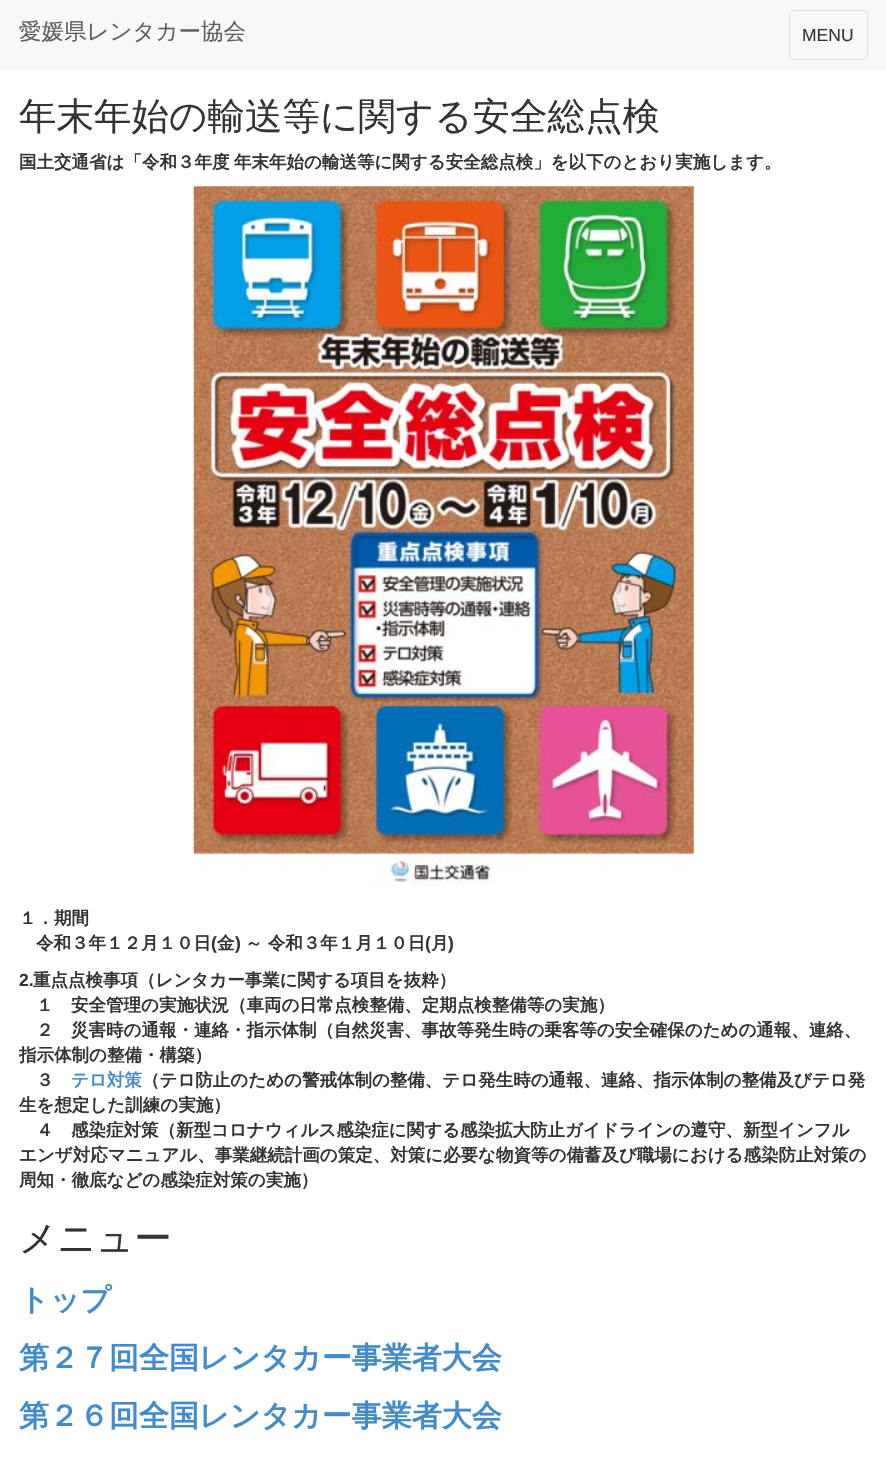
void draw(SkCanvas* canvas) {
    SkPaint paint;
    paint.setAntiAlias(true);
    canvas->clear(0xFFFFFFFF);
    paint.setColor(0xFFF8F8F8);
    canvas->drawRect(SkRect::MakeXYWH(0, 0, 886, 70), paint);
    SkFont font1(fontMgr->matchFamilyStyle("WenQuanYi Zen Hei", SkFontStyle(500, SkFontStyle::kNormal_Width, SkFontStyle::kUpright_Slant)), 22.5f);
    font1.setSubpixel(true);
    paint.setColor(0xFF5E5E5E);
    canvas->drawString("愛媛県レンタカー協会", 19, 39, font1, paint);
    paint.setStyle(SkPaint::kStroke_Style);
    paint.setStrokeWidth(1);
    paint.setColor(0xFFDDDDDD);
    canvas->drawRoundRect(SkRect::MakeXYWH(789.5f, 10.5f, 78, 49), 4.5f, 4.5f, paint);
    SkFont font2(fontMgr->matchFamilyStyle("Liberation Sans", SkFontStyle::Normal()), 17.5f);
    font2.setSubpixel(true);
    paint.setStyle(SkPaint::kFill_Style);
    paint.setColor(0xFF333333);
    canvas->drawString("MENU", 802, 41, font2, paint);
    SkFont font3(fontMgr->matchFamilyStyle("WenQuanYi Zen Hei", SkFontStyle(500, SkFontStyle::kNormal_Width, SkFontStyle::kUpright_Slant)), 37.5f);
    font3.setSubpixel(true);
    canvas->drawString("年末年始の輸送等に関する安全総点検", 19, 129, font3, paint);
    SkFont font4(fontMgr->matchFamilyStyle("WenQuanYi Zen Hei", SkFontStyle::Bold()), 17.5f);
    font4.setSubpixel(true);
    canvas->drawString("国土交通省は「令和３年度", 19, 168, font4, paint);
    canvas->drawString("年末年始の輸送等に関する安全総点検」を以下のとおり実施します。", 234, 168, font4, paint);
    canvas->drawImageRect(SkImages::DeferredFromEncodedData(SkData::MakeFromFileName("img1.png")), SkRect::MakeXYWH(193, 186, 501, 700), SkSamplingOptions());
    canvas->drawString("１．期間", 19, 924, font4, paint);
    canvas->drawString("令和３年１２月１０日", 36, 949, font4, paint);
    SkFont font5(fontMgr->matchFamilyStyle("Liberation Sans", SkFontStyle::Bold()), 17.5f);
    font5.setSubpixel(true);
    canvas->drawString("(", 211, 949, font5, paint);
    canvas->drawString("金", 217, 949, font4, paint);
    canvas->drawString(")", 235, 949, font5, paint);
    canvas->drawString("～ 令和３年１月１０日", 245, 949, font4, paint);
    canvas->drawString("(", 425, 949, font5, paint);
    canvas->drawString("月", 431, 949, font4, paint);
    canvas->drawString(")", 448, 949, font5, paint);
    canvas->drawString("2.", 19, 986, font5, paint);
    canvas->drawString("重点点検事項（レンタカー事業に関する項目を抜粋）", 33, 986, font4, paint);
    canvas->drawString("１　安全管理の実施状況（車両の日常点検整備、定期点検整備等の実施）", 36, 1011, font4, paint);
    canvas->drawString("２　災害時の通報・連絡・指示体制（自然災害、事故等発生時の乗客等の安全確保のための通報、連絡、", 36, 1036, font4, paint);
    canvas->drawString("指示体制の整備・構築）", 19, 1061, font4, paint);
    canvas->drawString("３", 36, 1086, font4, paint);
    paint.setColor(0xFF428BCA);
    canvas->drawString("テロ対策", 71, 1086, font4, paint);
    paint.setColor(0xFF333333);
    canvas->drawString("（テロ防止のための警戒体制の整備、テロ発生時の通報、連絡、指示体制の整備及びテロ発", 142, 1086, font4, paint);
    canvas->drawString("生を想定した訓練の実施）", 19, 1111, font4, paint);
    canvas->drawString("４　感染症対策（新型コロナウィルス感染症に関する感染拡大防止ガイドラインの遵守、新型インフル", 36, 1136, font4, paint);
    canvas->drawString("エンザ対応マニュアル、事業継続計画の策定、対策に必要な物資等の備蓄及び職場における感染防止対策の", 19, 1161, font4, paint);
    canvas->drawString("周知・徹底などの感染症対策の実施）", 19, 1186, font4, paint);
    canvas->drawString("メニュー", 19, 1251, font3, paint);
    SkFont font6(fontMgr->matchFamilyStyle("WenQuanYi Zen Hei", SkFontStyle::Bold()), 30);
    font6.setSubpixel(true);
    paint.setColor(0xFF428BCA);
    canvas->drawString("トップ", 19, 1310, font6, paint);
    canvas->drawString("第２７回全国レンタカー事業者大会", 19, 1368, font6, paint);
    canvas->drawString("第２６回全国レンタカー事業者大会", 19, 1426, font6, paint);
}
